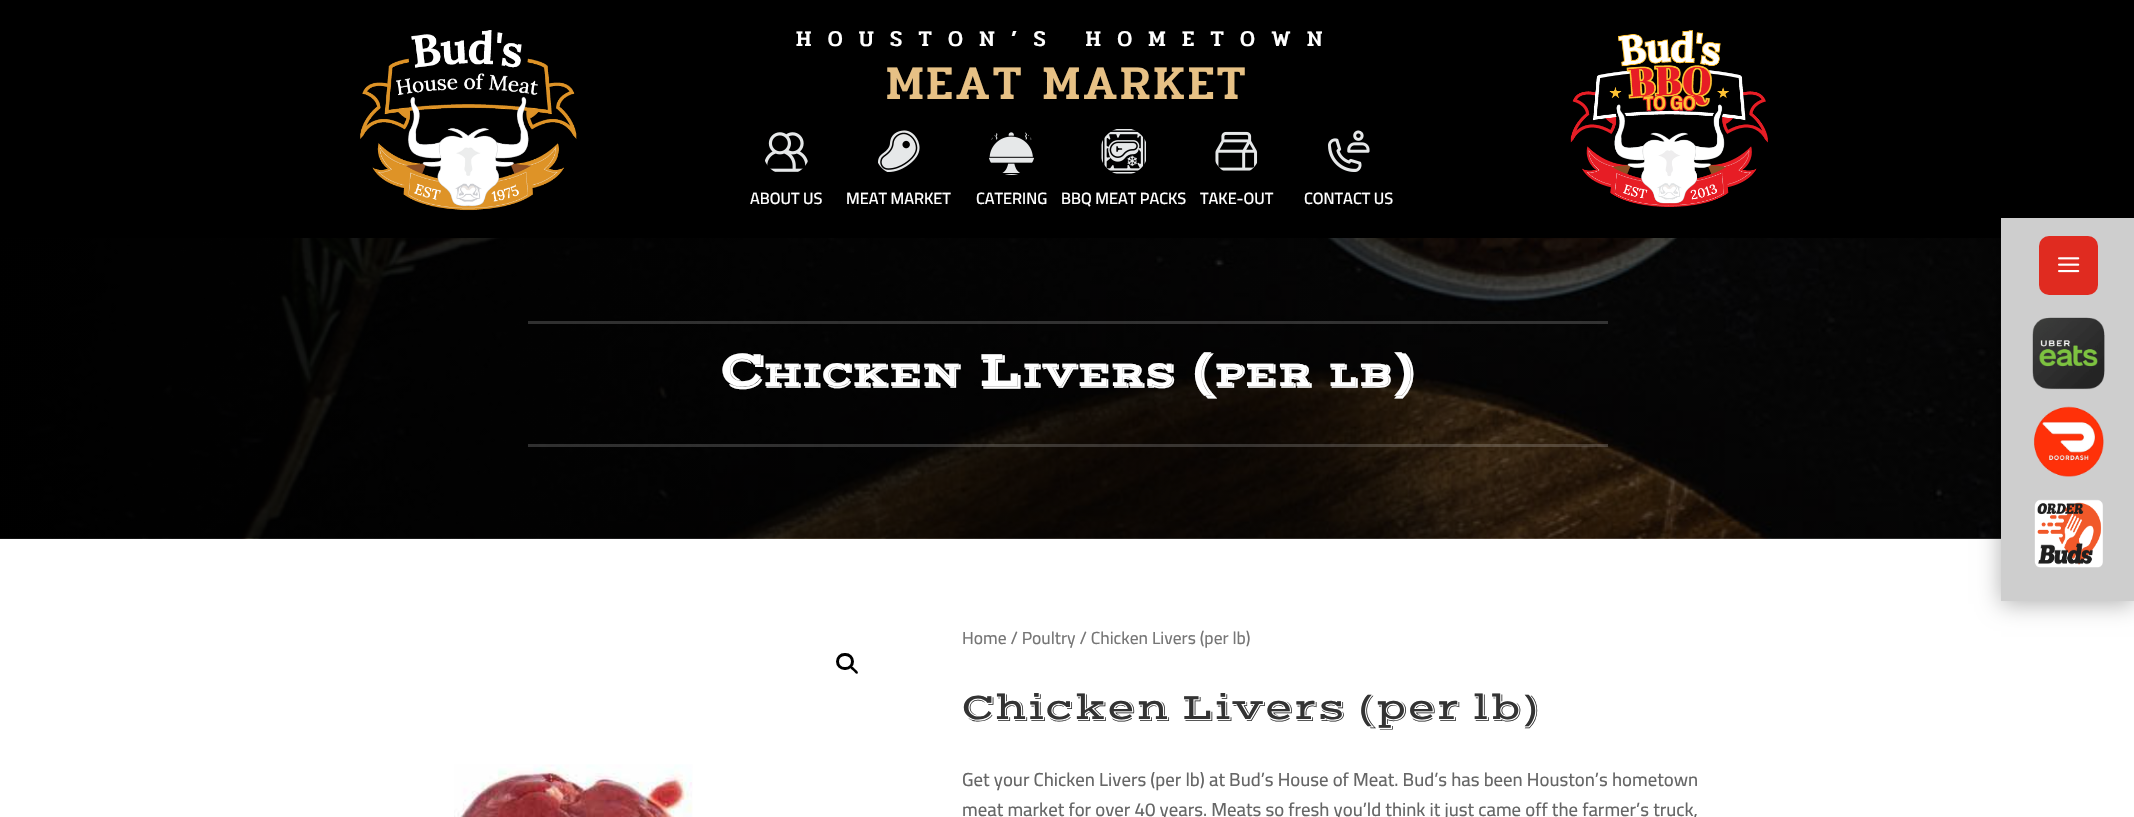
void draw(SkCanvas* canvas) {
    SkPaint paint;
    paint.setAntiAlias(true);
    auto spacedText = [&](const char* s, float x, float y, const SkFont& font, const SkPaint& ink, float letter, float word) {
        std::vector<SkGlyphID> glyphs(font.countText(s, strlen(s), SkTextEncoding::kUTF8));
        std::vector<float> xs(glyphs.size());
        font.textToGlyphs(s, strlen(s), SkTextEncoding::kUTF8, glyphs);
        font.getXPos(glyphs, xs, x);
        float extra = 0;
        for (size_t i = 0; i < glyphs.size(); i++) {
            xs[i] += extra;
            extra += letter + word * (glyphs[i] == font.unicharToGlyph(' '));
        }
        canvas->drawTextBlob(SkTextBlob::MakeFromPosHGlyphs(glyphs, xs, y, font), 0, 0, ink);
    };
    canvas->clear(0xFFFFFFFF);
    paint.setColor(0xFF000000);
    canvas->drawRect(SkRect::MakeXYWH(0, 0, 2134, 238), paint);
    canvas->drawImageRect(SkImages::DeferredFromEncodedData(SkData::MakeFromFileName("img1.png")), SkRect::MakeXYWH(360, 30, 217, 181), SkSamplingOptions());
    SkFont font1(fontMgr->matchFamilyStyle("Pridi", SkFontStyle(500, SkFontStyle::kNormal_Width, SkFontStyle::kUpright_Slant)), 22.5f);
    font1.setSubpixel(true);
    paint.setColor(0xFFFFFFFF);
    spacedText("HOUSTON’S HOMETOWN", 796, 46, font1, paint, 16.25f, 0);
    SkFont font2(fontMgr->matchFamilyStyle("Pridi", SkFontStyle(500, SkFontStyle::kNormal_Width, SkFontStyle::kUpright_Slant)), 48.75f);
    font2.setSubpixel(true);
    paint.setColor(0xFFE7C185);
    spacedText("MEAT MARKET", 886, 99, font2, paint, 2.5f, 0);
    canvas->drawImageRect(SkImages::DeferredFromEncodedData(SkData::MakeFromFileName("img2.png")), SkRect::MakeXYWH(765, 132, 43, 40), SkSamplingOptions());
    SkFont font3(fontMgr->matchFamilyStyle("Cairo", SkFontStyle(600, SkFontStyle::kNormal_Width, SkFontStyle::kUpright_Slant)), 16.25f);
    font3.setSubpixel(true);
    paint.setColor(0xFFFFFFFF);
    canvas->drawString("ABOUT US", 750, 204, font3, paint);
    canvas->drawImageRect(SkImages::DeferredFromEncodedData(SkData::MakeFromFileName("img3.png")), SkRect::MakeXYWH(878, 130, 42, 42), SkSamplingOptions());
    canvas->drawString("MEAT MARKET", 846, 204, font3, paint);
    canvas->drawImageRect(SkImages::DeferredFromEncodedData(SkData::MakeFromFileName("img4.png")), SkRect::MakeXYWH(989, 132, 45, 43), SkSamplingOptions());
    canvas->drawString("CATERING", 976, 204, font3, paint);
    canvas->drawImageRect(SkImages::DeferredFromEncodedData(SkData::MakeFromFileName("img5.png")), SkRect::MakeXYWH(1101, 129, 45, 45), SkSamplingOptions());
    canvas->drawString("BBQ MEAT PACKS", 1061, 204, font3, paint);
    canvas->drawImageRect(SkImages::DeferredFromEncodedData(SkData::MakeFromFileName("img6.png")), SkRect::MakeXYWH(1215, 131, 43, 40), SkSamplingOptions());
    canvas->drawString("TAKE-OUT", 1200, 204, font3, paint);
    canvas->drawImageRect(SkImages::DeferredFromEncodedData(SkData::MakeFromFileName("img7.png")), SkRect::MakeXYWH(1328, 130, 42, 42), SkSamplingOptions());
    canvas->drawString("CONTACT US", 1304, 204, font3, paint);
    canvas->drawImageRect(SkImages::DeferredFromEncodedData(SkData::MakeFromFileName("img8.png")), SkRect::MakeXYWH(1570, 30, 198, 177), SkSamplingOptions());
    canvas->drawImageRect(SkImages::DeferredFromEncodedData(SkData::MakeFromFileName("img9.png")), SkRect::MakeXYWH(0, 238, 2001, 301), SkSamplingOptions());
    paint.setColor(0x2EFFFFFF);
    canvas->drawRect(SkRect::MakeXYWH(528, 321, 1080, 3), paint);
    canvas->drawRect(SkRect::MakeXYWH(528, 444, 1080, 3), paint);
    SkFont font4(fontMgr->matchFamilyStyle("Vast Shadow", SkFontStyle::Bold()), 50);
    font4.setSubpixel(true);
    paint.setColor(0xFFFFFFFF);
    canvas->drawString("C", 720, 386, font4, paint);
    SkFont font5(fontMgr->matchFamilyStyle("Vast Shadow", SkFontStyle::Bold()), 35);
    font5.setSubpixel(true);
    canvas->drawString("HICKEN", 763, 386, font5, paint);
    canvas->drawString("L", 978, 386, font4, paint);
    canvas->drawString("IVERS", 1022, 386, font5, paint);
    canvas->drawString("(", 1191, 386, font4, paint);
    canvas->drawString("PER", 1214, 386, font5, paint);
    canvas->drawString("LB", 1328, 386, font5, paint);
    canvas->drawString(")", 1392, 386, font4, paint);
    paint.setStyle(SkPaint::kStroke_Style);
    paint.setStrokeWidth(3);
    paint.setColor(0xFF000000);
    canvas->drawRoundRect(SkRect::MakeXYWH(837.5f, 654.5f, 15, 14), 7, 7, paint);
    paint.setStyle(SkPaint::kFill_Style);
    canvas->drawPath(SkPathBuilder().moveTo(850.5f, 666.5f).cubicTo(852, 665, 854.5f, 668.5f, 855, 669).cubicTo(856, 670, 859, 672, 857.5f, 673.5f).cubicTo(856.5f, 675, 854, 671.5f, 853.5f, 671).cubicTo(852.5f, 670, 849, 668, 850.5f, 666.5f).close().detach(), paint);
    canvas->drawImageRect(SkImages::DeferredFromEncodedData(SkData::MakeFromFileName("img10.png")), SkRect::MakeXYWH(454, 764, 239, 53), SkSamplingOptions());
    SkFont font6(fontMgr->matchFamilyStyle("Cairo", SkFontStyle(500, SkFontStyle::kNormal_Width, SkFontStyle::kUpright_Slant)), 17.5f);
    font6.setSubpixel(true);
    paint.setColor(0xFF767676);
    canvas->drawString("Home / Poultry / Chicken Livers (per lb)", 962, 644, font6, paint);
    SkFont font7(fontMgr->matchFamilyStyle("Vast Shadow", SkFontStyle::Normal()), 37.5f);
    font7.setSubpixel(true);
    paint.setColor(0xFF333333);
    canvas->drawString("Chicken Livers (per lb)", 962, 719, font7, paint);
    SkFont font8(fontMgr->matchFamilyStyle("Cairo", SkFontStyle(500, SkFontStyle::kNormal_Width, SkFontStyle::kUpright_Slant)), 18.75f);
    font8.setSubpixel(true);
    paint.setColor(0xFF666666);
    canvas->drawString("Get your Chicken Livers (per lb) at Bud’s House of Meat. Bud’s has been Houston’s hometown", 962, 786, font8, paint);
    canvas->drawString("meat market for over 40 years. Meats so fresh you’ld think it just came off the farmer’s truck,", 962, 816, font8, paint);
    paint.setColor(0x4D000000);
    paint.setMaskFilter(SkMaskFilter::MakeBlur(kNormal_SkBlurStyle, 11));
    canvas->drawRect(SkRect::MakeXYWH(2001, 220, 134, 384), paint);
    paint.setMaskFilter(nullptr);
    paint.setColor(0xFFCECECE);
    canvas->drawRect(SkRect::MakeXYWH(2001, 218, 133, 383), paint);
    paint.setColor(0xFFE02B20);
    canvas->drawRoundRect(SkRect::MakeXYWH(2039, 236, 59, 59), 10, 10, paint);
    canvas->drawImageRect(SkImages::DeferredFromEncodedData(SkData::MakeFromFileName("img11.png")), SkRect::MakeXYWH(2058, 257, 22, 16), SkSamplingOptions());
    canvas->drawImageRect(SkImages::DeferredFromEncodedData(SkData::MakeFromFileName("img12.png")), SkRect::MakeXYWH(2032, 317, 73, 73), SkSamplingOptions());
    canvas->drawImageRect(SkImages::DeferredFromEncodedData(SkData::MakeFromFileName("img13.png")), SkRect::MakeXYWH(2033, 406, 71, 71), SkSamplingOptions());
    canvas->drawImageRect(SkImages::DeferredFromEncodedData(SkData::MakeFromFileName("img14.png")), SkRect::MakeXYWH(2034, 499, 69, 69), SkSamplingOptions());
}
